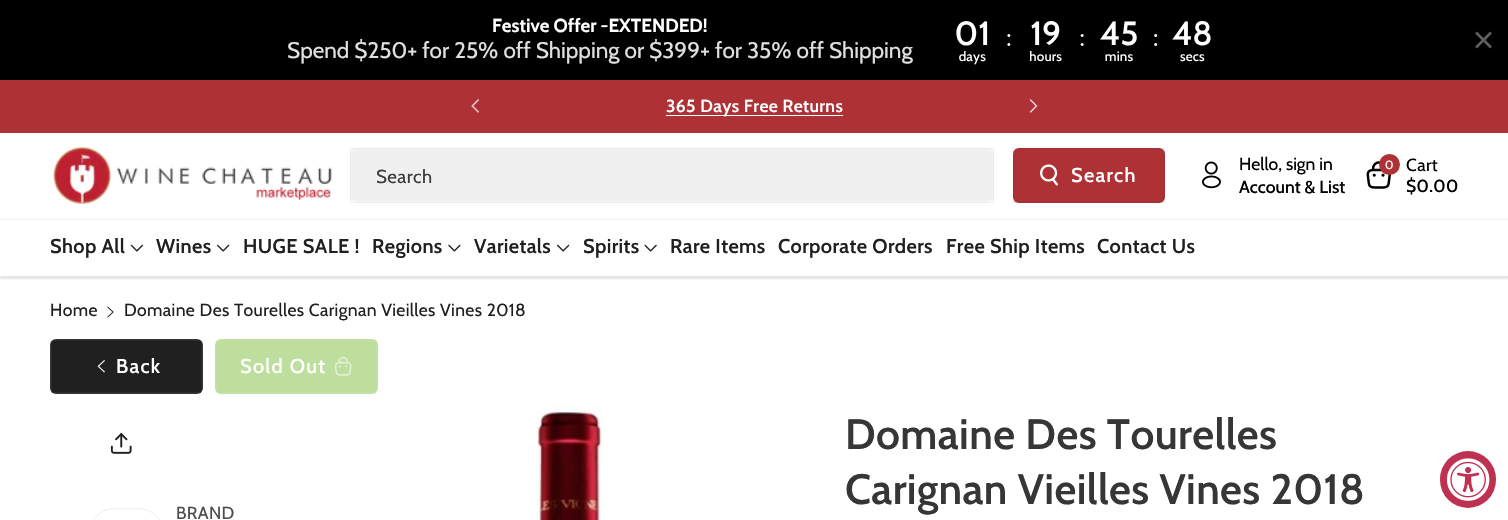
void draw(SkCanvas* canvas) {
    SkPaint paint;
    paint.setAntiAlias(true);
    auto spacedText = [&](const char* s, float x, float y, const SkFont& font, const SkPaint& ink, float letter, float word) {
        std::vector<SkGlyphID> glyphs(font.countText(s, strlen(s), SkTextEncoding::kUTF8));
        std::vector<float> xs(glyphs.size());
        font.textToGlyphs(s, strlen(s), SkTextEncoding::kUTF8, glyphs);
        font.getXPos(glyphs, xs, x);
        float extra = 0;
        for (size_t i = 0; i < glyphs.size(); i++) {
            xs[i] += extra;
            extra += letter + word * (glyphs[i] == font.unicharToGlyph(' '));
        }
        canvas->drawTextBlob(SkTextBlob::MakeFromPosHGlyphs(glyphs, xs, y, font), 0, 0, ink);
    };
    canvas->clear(0xFFFFFFFF);
    paint.setColor(0xFF000000);
    canvas->drawRect(SkRect::MakeXYWH(0, 0, 1508, 80), paint);
    SkFont font1(fontMgr->matchFamilyStyle("Cabin", SkFontStyle::Bold()), 18.75f);
    font1.setSubpixel(true);
    paint.setColor(0xFFFFFFFF);
    canvas->drawString("Festive Offer -EXTENDED!", 492, 32, font1, paint);
    SkFont font2(fontMgr->matchFamilyStyle("Cabin", SkFontStyle::Normal()), 22.5f);
    font2.setSubpixel(true);
    paint.setColor(0xFFE0E0E0);
    canvas->drawString("Spend $250+ for 25% off Shipping or $399+ for 35% off Shipping", 287, 58, font2, paint);
    canvas->drawImageRect(SkImages::DeferredFromEncodedData(SkData::MakeFromFileName("img1.png")), SkRect::MakeXYWH(956, 21, 255, 44), SkSamplingOptions());
    paint.setStyle(SkPaint::kStroke_Style);
    paint.setStrokeWidth(2.5f);
    paint.setColor(0xFF616161);
    canvas->drawPath(SkPathBuilder().moveTo(1491, 32.5f).lineTo(1476, 47.5f).moveTo(1491, 47.5f).lineTo(1476, 32.5f).detach(), paint);
    paint.setStyle(SkPaint::kFill_Style);
    paint.setColor(0xFFAE3136);
    canvas->drawRect(SkRect::MakeXYWH(0, 80, 1508, 53), paint);
    canvas->drawImageRect(SkImages::DeferredFromEncodedData(SkData::MakeFromFileName("img2.png")), SkRect::MakeXYWH(471, 99, 8, 14), SkSamplingOptions());
    paint.setColor(0xFFFFFFFF);
    canvas->drawRect(SkRect::MakeXYWH(666, 115, 177, 1), paint);
    SkFont font3(fontMgr->matchFamilyStyle("Cabin", SkFontStyle(600, SkFontStyle::kNormal_Width, SkFontStyle::kUpright_Slant)), 17.5f);
    font3.setSubpixel(true);
    spacedText("365 Days Free Returns", 666, 112, font3, paint, 0.38f, 0);
    canvas->drawImageRect(SkImages::DeferredFromEncodedData(SkData::MakeFromFileName("img3.png")), SkRect::MakeXYWH(1029, 99, 9, 14), SkSamplingOptions());
    canvas->save();
    canvas->clipRect(SkRect::MakeXYWH(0, 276, 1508, 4));
    paint.setColor(0x1A000000);
    paint.setMaskFilter(SkMaskFilter::MakeBlur(kNormal_SkBlurStyle, 1));
    canvas->drawRect(SkRect::MakeXYWH(0, 135, 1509, 144), paint);
    paint.setMaskFilter(nullptr);
    canvas->restore();
    canvas->drawImageRect(SkImages::DeferredFromEncodedData(SkData::MakeFromFileName("img4.png")), SkRect::MakeXYWH(53, 147, 279, 57), SkSamplingOptions());
    paint.setColor(0xFFF7F7F7);
    canvas->drawRoundRect(SkRect::MakeXYWH(350, 148, 644, 55), 5, 5, paint);
    paint.setColor(0xFFF0F0F0);
    canvas->drawRoundRect(SkRect::MakeXYWH(351, 149, 642, 52), 5, 5, paint);
    paint.setStyle(SkPaint::kStroke_Style);
    paint.setStrokeWidth(1);
    paint.setColor(0x0D000000);
    canvas->drawRect(SkRect::MakeXYWH(350.5f, 148.5f, 643, 54), paint);
    SkFont font4(fontMgr->matchFamilyStyle("Cabin", SkFontStyle::Normal()), 18.75f);
    font4.setSubpixel(true);
    paint.setStyle(SkPaint::kFill_Style);
    paint.setColor(0xFF3C3C3C);
    spacedText("Search", 376, 183, font4, paint, 0.38f, 0);
    paint.setColor(0xFFAE3136);
    canvas->drawRoundRect(SkRect::MakeXYWH(1013, 148, 152, 55), 6, 6, paint);
    canvas->drawImageRect(SkImages::DeferredFromEncodedData(SkData::MakeFromFileName("img5.png")), SkRect::MakeXYWH(1040, 164, 18, 22), SkSamplingOptions());
    paint.setStyle(SkPaint::kStroke_Style);
    paint.setColor(0x0D202020);
    canvas->drawRect(SkRect::MakeXYWH(1013.5f, 148.5f, 151, 54), paint);
    paint.setStrokeWidth(2);
    canvas->drawRect(SkRect::MakeXYWH(1014, 149, 150, 53), paint);
    SkFont font5(fontMgr->matchFamilyStyle("Cabin", SkFontStyle(500, SkFontStyle::kNormal_Width, SkFontStyle::kUpright_Slant)), 20);
    font5.setSubpixel(true);
    paint.setStyle(SkPaint::kFill_Style);
    paint.setColor(0xFFFFFFFF);
    spacedText("Search", 1071, 182, font5, paint, 1.25f, 0);
    canvas->drawImageRect(SkImages::DeferredFromEncodedData(SkData::MakeFromFileName("img6.png")), SkRect::MakeXYWH(1202, 161, 19, 28), SkSamplingOptions());
    SkFont font6(fontMgr->matchFamilyStyle("Cabin", SkFontStyle::Normal()), 17.5f);
    font6.setSubpixel(true);
    paint.setColor(0xFF000000);
    canvas->drawString("Hello, sign in", 1239, 170, font6, paint);
    SkFont font7(fontMgr->matchFamilyStyle("Cabin", SkFontStyle(500, SkFontStyle::kNormal_Width, SkFontStyle::kUpright_Slant)), 17.5f);
    font7.setSubpixel(true);
    canvas->drawString("Account & List", 1239, 193, font7, paint);
    canvas->drawImageRect(SkImages::DeferredFromEncodedData(SkData::MakeFromFileName("img7.png")), SkRect::MakeXYWH(1366, 161, 25, 28), SkSamplingOptions());
    paint.setColor(0xFFAE3136);
    canvas->drawCircle(1389.5f, 164.5f, 10.5f, paint);
    SkFont font8(fontMgr->matchFamilyStyle("Cabin", SkFontStyle::Normal()), 12);
    font8.setSubpixel(true);
    paint.setColor(0xFFFFFFFF);
    spacedText("0", 1385, 169, font8, paint, 0.38f, 0);
    paint.setColor(0xFF000000);
    spacedText("Cart", 1406, 171, font6, paint, 0.38f, 0);
    spacedText("$0.00", 1406, 192, font7, paint, 0.38f, 0);
    paint.setColor(0xFFEFEFEF);
    canvas->drawRect(SkRect::MakeXYWH(0, 219, 1508, 1), paint);
    SkFont font9(fontMgr->matchFamilyStyle("Cabin", SkFontStyle(600, SkFontStyle::kNormal_Width, SkFontStyle::kUpright_Slant)), 20);
    font9.setSubpixel(true);
    paint.setColor(0xFF202020);
    spacedText("Shop All", 50, 253, font9, paint, 0.38f, 0);
    canvas->drawImageRect(SkImages::DeferredFromEncodedData(SkData::MakeFromFileName("img8.png")), SkRect::MakeXYWH(130, 244, 13, 8), SkSamplingOptions());
    spacedText("Wines", 156, 253, font9, paint, 0.38f, 0);
    canvas->drawImageRect(SkImages::DeferredFromEncodedData(SkData::MakeFromFileName("img9.png")), SkRect::MakeXYWH(217, 244, 13, 8), SkSamplingOptions());
    spacedText("HUGE SALE !", 243, 253, font9, paint, 0.38f, 0);
    spacedText("Regions", 372, 253, font9, paint, 0.38f, 0);
    canvas->drawImageRect(SkImages::DeferredFromEncodedData(SkData::MakeFromFileName("img10.png")), SkRect::MakeXYWH(448, 244, 13, 8), SkSamplingOptions());
    spacedText("Varietals", 474, 253, font9, paint, 0.38f, 0);
    canvas->drawImageRect(SkImages::DeferredFromEncodedData(SkData::MakeFromFileName("img9.png")), SkRect::MakeXYWH(557, 244, 13, 8), SkSamplingOptions());
    spacedText("Spirits", 583, 253, font9, paint, 0.38f, 0);
    canvas->drawImageRect(SkImages::DeferredFromEncodedData(SkData::MakeFromFileName("img11.png")), SkRect::MakeXYWH(644, 244, 13, 8), SkSamplingOptions());
    spacedText("Rare Items", 670, 253, font9, paint, 0.38f, 0);
    spacedText("Corporate Orders", 778, 253, font9, paint, 0.38f, 0);
    spacedText("Free Ship Items", 946, 253, font9, paint, 0.38f, 0);
    spacedText("Contact Us", 1097, 253, font9, paint, 0.38f, 0);
    spacedText("Home", 50, 316, font6, paint, 0.38f, 0);
    canvas->drawImageRect(SkImages::DeferredFromEncodedData(SkData::MakeFromFileName("img12.png")), SkRect::MakeXYWH(107, 306, 7, 12), SkSamplingOptions());
    spacedText("Domaine Des Tourelles Carignan Vieilles Vines 2018", 124, 316, font6, paint, 0.38f, 0);
    canvas->drawRoundRect(SkRect::MakeXYWH(50, 339, 153, 55), 6, 6, paint);
    canvas->drawImageRect(SkImages::DeferredFromEncodedData(SkData::MakeFromFileName("img13.png")), SkRect::MakeXYWH(97, 360, 8, 13), SkSamplingOptions());
    paint.setStyle(SkPaint::kStroke_Style);
    paint.setStrokeWidth(1);
    paint.setColor(0x0DFFFFFF);
    canvas->drawRect(SkRect::MakeXYWH(50.5f, 339.5f, 152, 54), paint);
    paint.setStrokeWidth(2);
    canvas->drawRect(SkRect::MakeXYWH(51, 340, 151, 53), paint);
    paint.setStyle(SkPaint::kFill_Style);
    paint.setColor(0xFFFFFFFF);
    spacedText("Back", 116, 373, font5, paint, 1.25f, 0);
    paint.setColor(0xFFBEDE9E);
    canvas->drawRoundRect(SkRect::MakeXYWH(215, 339, 163, 55), 6, 6, paint);
    canvas->drawImageRect(SkImages::DeferredFromEncodedData(SkData::MakeFromFileName("img14.png")), SkRect::MakeXYWH(334, 356, 18, 20), SkSamplingOptions());
    paint.setStyle(SkPaint::kStroke_Style);
    paint.setStrokeWidth(1);
    paint.setColor(0x0DFFFFFF);
    canvas->drawRect(SkRect::MakeXYWH(215.5f, 339.5f, 162, 54), paint);
    paint.setStrokeWidth(2);
    canvas->drawRect(SkRect::MakeXYWH(216, 340, 161, 53), paint);
    paint.setStyle(SkPaint::kFill_Style);
    paint.setColor(0xFFFFFFFF);
    spacedText("Sold Out", 240, 373, font5, paint, 1.25f, 0);
    canvas->drawImageRect(SkImages::DeferredFromEncodedData(SkData::MakeFromFileName("img15.png")), SkRect::MakeXYWH(110, 433, 22, 21), SkSamplingOptions());
    paint.setStyle(SkPaint::kStroke_Style);
    paint.setStrokeWidth(1);
    paint.setColor(0xFFEEEEEE);
    canvas->drawRoundRect(SkRect::MakeXYWH(89.5f, 508.5f, 74, 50), 37, 37, paint);
    paint.setStyle(SkPaint::kFill_Style);
    paint.setColor(0xFF4D4D4D);
    spacedText("BRAND", 176, 519, font6, paint, 0.38f, 0);
    canvas->drawImageRect(SkImages::DeferredFromEncodedData(SkData::MakeFromFileName("img16.png")), SkRect::MakeXYWH(536, 406, 68, 114), SkSamplingOptions());
    SkFont font10(fontMgr->matchFamilyStyle("Cabin", SkFontStyle(600, SkFontStyle::kNormal_Width, SkFontStyle::kUpright_Slant)), 42.5f);
    font10.setSubpixel(true);
    paint.setColor(0xFF363636);
    spacedText("Domaine Des Tourelles", 845, 449, font10, paint, 0.38f, 0);
    spacedText("Carignan Vieilles Vines 2018", 845, 504, font10, paint, 0.38f, 0);
    paint.setColor(0xFFBF3151);
    canvas->drawRoundRect(SkRect::MakeXYWH(1440, 451, 56, 57), 28, 28, paint);
    canvas->drawImageRect(SkImages::DeferredFromEncodedData(SkData::MakeFromFileName("img17.png")), SkRect::MakeXYWH(1446, 458, 44, 43), SkSamplingOptions());
}
